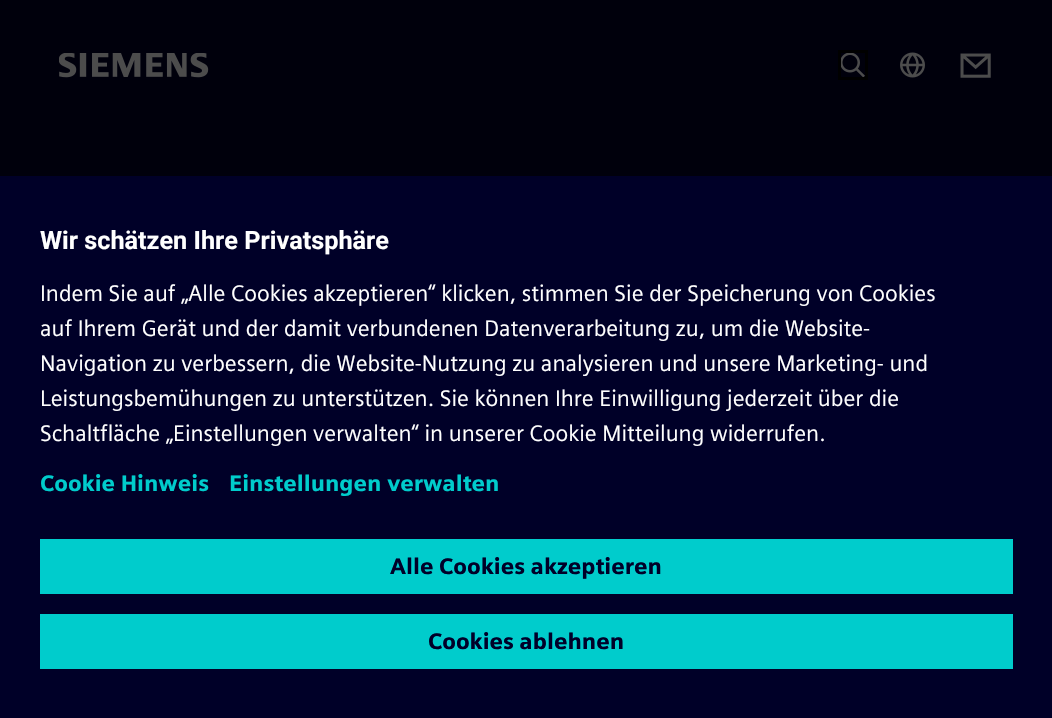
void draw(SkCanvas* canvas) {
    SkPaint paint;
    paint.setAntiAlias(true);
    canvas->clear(0xFF00000C);
    canvas->drawImageRect(SkImages::DeferredFromEncodedData(SkData::MakeFromFileName("img1.png")), SkRect::MakeXYWH(59, 53, 150, 25), SkSamplingOptions());
    canvas->drawImageRect(SkImages::DeferredFromEncodedData(SkData::MakeFromFileName("img2.png")), SkRect::MakeXYWH(841, 53, 24, 24), SkSamplingOptions());
    paint.setStyle(SkPaint::kStroke_Style);
    paint.setStrokeWidth(3);
    paint.setColor(0xFF000000);
    canvas->drawRect(SkRect::MakeXYWH(839.5f, 51.5f, 27, 27), paint);
    canvas->drawImageRect(SkImages::DeferredFromEncodedData(SkData::MakeFromFileName("img3.png")), SkRect::MakeXYWH(900, 52, 25, 26), SkSamplingOptions());
    canvas->drawImageRect(SkImages::DeferredFromEncodedData(SkData::MakeFromFileName("img4.png")), SkRect::MakeXYWH(960, 53, 31, 25), SkSamplingOptions());
    paint.setStyle(SkPaint::kFill_Style);
    paint.setColor(0xFF000028);
    canvas->drawRect(SkRect::MakeXYWH(0, 176, 1052, 542), paint);
    SkFont font1(fontMgr->matchFamilyStyle("Roboto", SkFontStyle::Bold()), 25.25f);
    font1.setSubpixel(true);
    paint.setColor(0xFFFFFFFF);
    canvas->drawString("Wir schätzen Ihre Privatsphäre", 40, 249, font1, paint);
    SkFont font2(fontMgr->matchFamilyStyle("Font", SkFontStyle::Normal()), 22.5f);
    font2.setSubpixel(true);
    canvas->drawString("Indem Sie auf „Alle Cookies akzeptieren“ klicken, stimmen Sie der Speicherung von Cookies", 40, 301, font2, paint);
    canvas->drawString("auf Ihrem Gerät und der damit verbundenen Datenverarbeitung zu, um die Website-", 40, 336, font2, paint);
    canvas->drawString("Navigation zu verbessern, die Website-Nutzung zu analysieren und unsere Marketing- und", 40, 371, font2, paint);
    canvas->drawString("Leistungsbemühungen zu unterstützen. Sie können Ihre Einwilligung jederzeit über die", 40, 406, font2, paint);
    canvas->drawString("Schaltfläche „Einstellungen verwalten“ in unserer Cookie Mitteilung widerrufen.", 40, 441, font2, paint);
    SkFont font3(fontMgr->matchFamilyStyle("Font", SkFontStyle::Bold()), 22.5f);
    font3.setSubpixel(true);
    paint.setColor(0xFF00CCCC);
    canvas->drawString("Cookie Hinweis", 40, 491, font3, paint);
    canvas->drawString("Einstellungen verwalten", 229, 491, font3, paint);
    canvas->drawRect(SkRect::MakeXYWH(40, 539, 973, 55), paint);
    paint.setColor(0xFF000028);
    canvas->drawString("Alle Cookies akzeptieren", 390, 574, font3, paint);
    paint.setColor(0xFF00CCCC);
    canvas->drawRect(SkRect::MakeXYWH(40, 614, 973, 55), paint);
    paint.setColor(0xFF000028);
    canvas->drawString("Cookies ablehnen", 428, 649, font3, paint);
}
